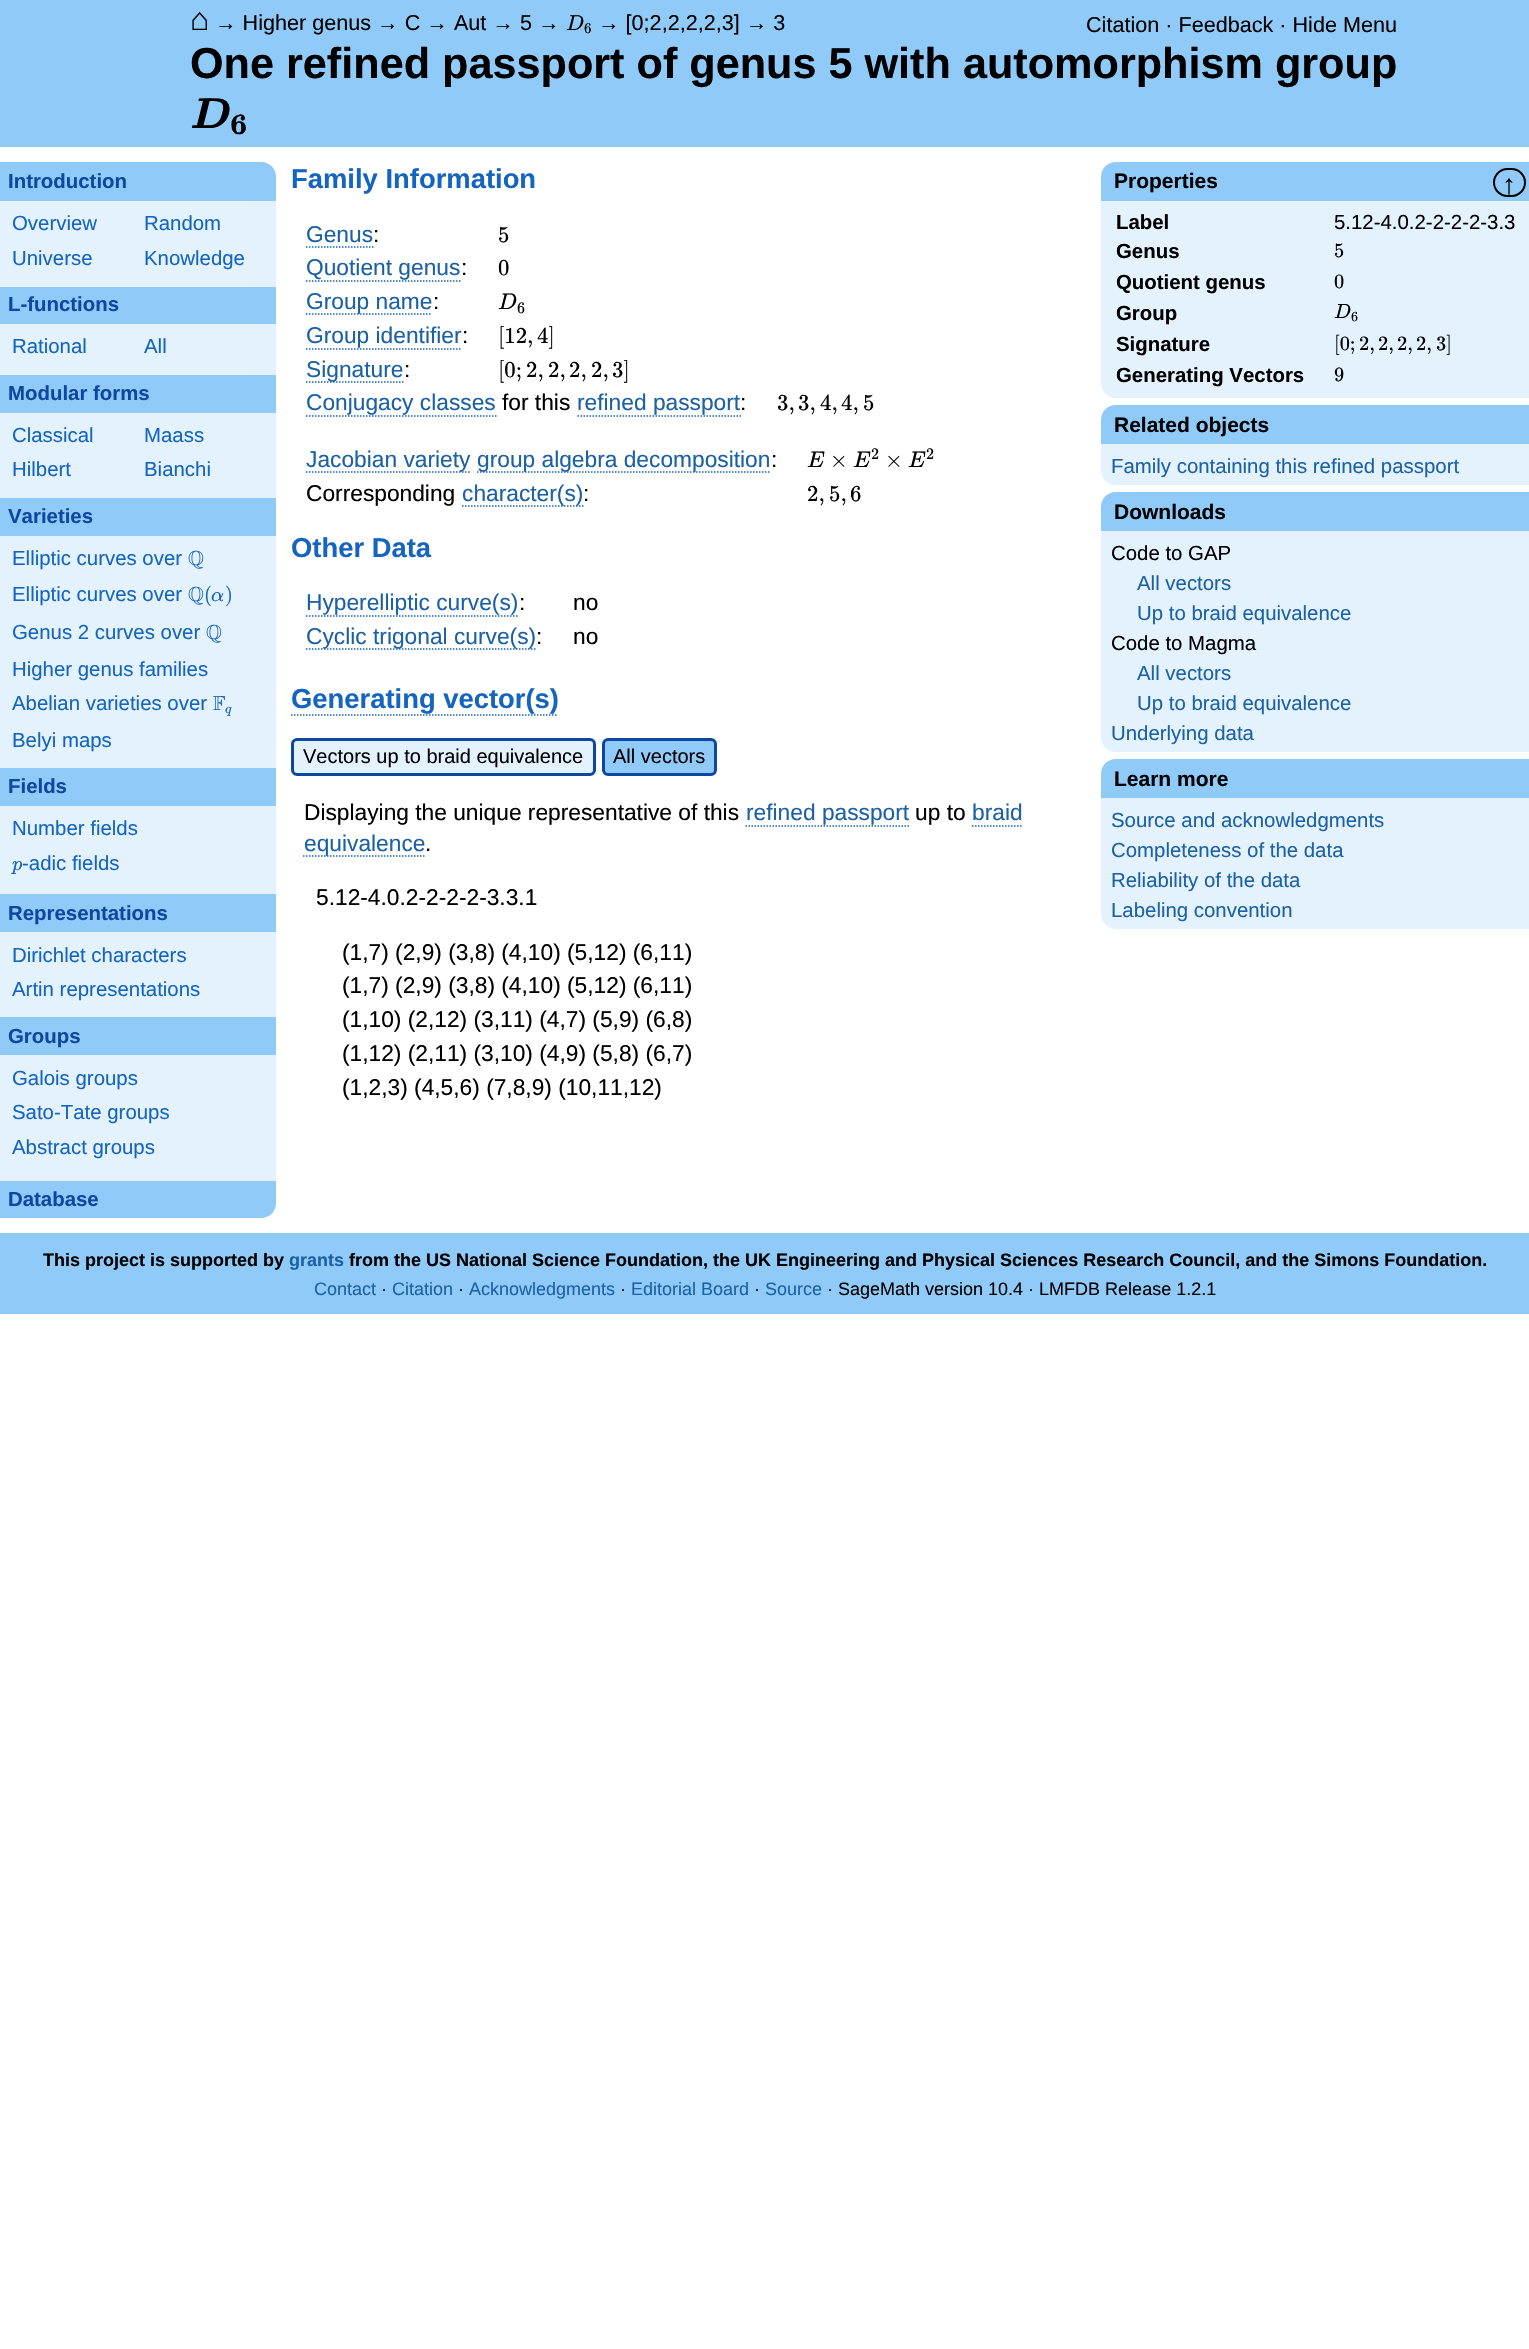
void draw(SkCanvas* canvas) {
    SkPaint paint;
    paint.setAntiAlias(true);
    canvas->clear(0xFFFFFFFF);
    paint.setColor(0xFF90CAF9);
    canvas->drawRect(SkRect::MakeXYWH(0, 0, 1529, 147), paint);
    SkFont font1(fontMgr->matchFamilyStyle("Liberation Sans", SkFontStyle::Normal()), 32);
    font1.setSubpixel(true);
    paint.setColor(0xFF000000);
    canvas->drawString("⌂", 190, 30, font1, paint);
    SkFont font2(fontMgr->matchFamilyStyle("Liberation Sans", SkFontStyle::Normal()), 21.6f);
    font2.setSubpixel(true);
    canvas->drawString("→ Higher genus → C → Aut → 5 →", 215, 30, font2, paint);
    SkFont font3(fontMgr->matchFamilyStyle("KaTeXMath", SkFontStyle::Italic()), 21.6f);
    font3.setSubpixel(true);
    canvas->drawString("D", 566, 30, font3, paint);
    SkFont font4(fontMgr->matchFamilyStyle("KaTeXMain", SkFontStyle::Normal()), 15);
    font4.setSubpixel(true);
    canvas->drawString("6", 584, 33, font4, paint);
    canvas->drawString("→ [0;2,2,2,2,3] → 3", 598, 30, font2, paint);
    canvas->drawString("Citation · Feedback · Hide Menu", 1086, 32, font2, paint);
    SkFont font5(fontMgr->matchFamilyStyle("Liberation Sans", SkFontStyle::Bold()), 43.2f);
    font5.setSubpixel(true);
    canvas->drawString("One refined passport of genus 5 with automorphism group", 190, 78, font5, paint);
    SkFont font6(fontMgr->matchFamilyStyle("KaTeXMath", SkFontStyle::BoldItalic()), 43.2f);
    font6.setSubpixel(true);
    canvas->drawString("D", 190, 128, font6, paint);
    SkFont font7(fontMgr->matchFamilyStyle("KaTeXMain", SkFontStyle::Bold()), 30);
    font7.setSubpixel(true);
    canvas->drawString("6", 230, 134, font7, paint);
    paint.setColor(0xFFE3F2FD);
    canvas->drawPath(SkPathBuilder().moveTo(0, 162).lineTo(261, 162).cubicTo(269.5f, 162, 276, 168.5f, 276, 177).lineTo(276, 1203).cubicTo(276, 1211.5f, 269.5f, 1218, 261, 1218).lineTo(0, 1218).close().detach(), paint);
    paint.setColor(0xFF90CAF9);
    canvas->drawPath(SkPathBuilder().moveTo(0, 162).lineTo(261, 162).cubicTo(269.5f, 162, 276, 168.5f, 276, 177).lineTo(276, 201).lineTo(0, 201).close().detach(), paint);
    SkFont font8(fontMgr->matchFamilyStyle("Liberation Sans", SkFontStyle::Bold()), 20.4f);
    font8.setSubpixel(true);
    paint.setColor(0xFF0D47A1);
    canvas->drawString("Introduction", 8, 188, font8, paint);
    SkFont font9(fontMgr->matchFamilyStyle("Liberation Sans", SkFontStyle::Normal()), 20.4f);
    font9.setSubpixel(true);
    paint.setColor(0xFF1565C0);
    canvas->drawString("Overview", 12, 230, font9, paint);
    canvas->drawString("Random", 144, 230, font9, paint);
    canvas->drawString("Universe", 12, 265, font9, paint);
    canvas->drawString("Knowledge", 144, 265, font9, paint);
    paint.setColor(0xFF90CAF9);
    canvas->drawRect(SkRect::MakeXYWH(0, 287, 276, 37), paint);
    paint.setColor(0xFF0D47A1);
    canvas->drawString("L-functions", 8, 311, font8, paint);
    paint.setColor(0xFF1565C0);
    canvas->drawString("Rational", 12, 353, font9, paint);
    canvas->drawString("All", 144, 353, font9, paint);
    paint.setColor(0xFF90CAF9);
    canvas->drawRect(SkRect::MakeXYWH(0, 375, 276, 38), paint);
    paint.setColor(0xFF0D47A1);
    canvas->drawString("Modular forms", 8, 400, font8, paint);
    paint.setColor(0xFF1565C0);
    canvas->drawString("Classical", 12, 442, font9, paint);
    canvas->drawString("Maass", 144, 442, font9, paint);
    canvas->drawString("Hilbert", 12, 476, font9, paint);
    canvas->drawString("Bianchi", 144, 476, font9, paint);
    paint.setColor(0xFF90CAF9);
    canvas->drawRect(SkRect::MakeXYWH(0, 498, 276, 38), paint);
    paint.setColor(0xFF0D47A1);
    canvas->drawString("Varieties", 8, 523, font8, paint);
    paint.setColor(0xFF1565C0);
    canvas->drawString("Elliptic curves over", 12, 565, font9, paint);
    SkFont font10(fontMgr->matchFamilyStyle("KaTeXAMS", SkFontStyle::Normal()), 20.4f);
    font10.setSubpixel(true);
    canvas->drawString("Q", 188, 565, font10, paint);
    canvas->drawString("Elliptic curves over", 12, 601, font9, paint);
    canvas->drawString("Q", 188, 601, font10, paint);
    SkFont font11(fontMgr->matchFamilyStyle("KaTeXMain", SkFontStyle::Normal()), 20.4f);
    font11.setSubpixel(true);
    canvas->drawString("(", 204, 601, font11, paint);
    SkFont font12(fontMgr->matchFamilyStyle("KaTeXMath", SkFontStyle::Italic()), 20.4f);
    font12.setSubpixel(true);
    canvas->drawString("α", 211, 601, font12, paint);
    canvas->drawString(")", 225, 601, font11, paint);
    canvas->drawString("Genus 2 curves over", 12, 639, font9, paint);
    canvas->drawString("Q", 206, 639, font10, paint);
    canvas->drawString("Higher genus families", 12, 676, font9, paint);
    canvas->drawString("Abelian varieties over", 12, 710, font9, paint);
    canvas->drawString("F", 213, 710, font10, paint);
    SkFont font13(fontMgr->matchFamilyStyle("KaTeXMath", SkFontStyle::Italic()), 14);
    font13.setSubpixel(true);
    canvas->drawString("q", 225, 713, font13, paint);
    canvas->drawString("Belyi maps", 12, 747, font9, paint);
    paint.setColor(0xFF90CAF9);
    canvas->drawRect(SkRect::MakeXYWH(0, 768, 276, 38), paint);
    paint.setColor(0xFF0D47A1);
    canvas->drawString("Fields", 8, 793, font8, paint);
    paint.setColor(0xFF1565C0);
    canvas->drawString("Number fields", 12, 835, font9, paint);
    canvas->drawString("p", 12, 870, font12, paint);
    canvas->drawString("-adic fields", 22, 870, font9, paint);
    paint.setColor(0xFF90CAF9);
    canvas->drawRect(SkRect::MakeXYWH(0, 894, 276, 38), paint);
    paint.setColor(0xFF0D47A1);
    canvas->drawString("Representations", 8, 920, font8, paint);
    paint.setColor(0xFF1565C0);
    canvas->drawString("Dirichlet characters", 12, 962, font9, paint);
    canvas->drawString("Artin representations", 12, 996, font9, paint);
    paint.setColor(0xFF90CAF9);
    canvas->drawRect(SkRect::MakeXYWH(0, 1017, 276, 38), paint);
    paint.setColor(0xFF0D47A1);
    canvas->drawString("Groups", 8, 1043, font8, paint);
    paint.setColor(0xFF1565C0);
    canvas->drawString("Galois groups", 12, 1085, font9, paint);
    canvas->drawString("Sato-Tate groups", 12, 1119, font9, paint);
    canvas->drawString("Abstract groups", 12, 1154, font9, paint);
    paint.setColor(0xFF90CAF9);
    canvas->drawPath(SkPathBuilder().moveTo(0, 1181).lineTo(276, 1181).lineTo(276, 1203).cubicTo(276, 1211.5f, 269.5f, 1218, 261, 1218).lineTo(0, 1218).close().detach(), paint);
    paint.setColor(0xFF0D47A1);
    canvas->drawString("Database", 8, 1206, font8, paint);
    SkFont font14(fontMgr->matchFamilyStyle("Liberation Sans", SkFontStyle::Bold()), 27.4f);
    font14.setSubpixel(true);
    paint.setColor(0xFF1565C0);
    canvas->drawString("Family Information", 291, 188, font14, paint);
    SkFont font15(fontMgr->matchFamilyStyle("Liberation Sans", SkFontStyle::Normal()), 22.75f);
    font15.setSubpixel(true);
    paint.setColor(0xFF1C61A6);
    canvas->drawString("Genus", 306, 242, font15, paint);
    paint.setStyle(SkPaint::kStroke_Style);
    paint.setStrokeWidth(1.5f);
    paint.setColor(0xFF1565C0);
    paint.setPathEffect(SkDashPathEffect::Make({{1.5f, 1.5f}}, 0));
    canvas->drawPath(SkPathBuilder().moveTo(306, 247).lineTo(373.5f, 247).detach(), paint);
    paint.setPathEffect(nullptr);
    paint.setStyle(SkPaint::kFill_Style);
    paint.setColor(0xFF000000);
    canvas->drawString(":", 373, 242, font15, paint);
    SkFont font16(fontMgr->matchFamilyStyle("KaTeXMain", SkFontStyle::Normal()), 22.75f);
    font16.setSubpixel(true);
    canvas->drawString("5", 498, 242, font16, paint);
    paint.setColor(0xFF1C61A6);
    canvas->drawString("Quotient genus", 306, 275, font15, paint);
    paint.setStyle(SkPaint::kStroke_Style);
    paint.setColor(0xFF1565C0);
    paint.setPathEffect(SkDashPathEffect::Make({{1.5f, 1.5f}}, 0));
    canvas->drawPath(SkPathBuilder().moveTo(306, 281).lineTo(460.5f, 281).detach(), paint);
    paint.setPathEffect(nullptr);
    paint.setStyle(SkPaint::kFill_Style);
    paint.setColor(0xFF000000);
    canvas->drawString(":", 461, 275, font15, paint);
    canvas->drawString("0", 498, 275, font16, paint);
    paint.setStyle(SkPaint::kStroke_Style);
    paint.setColor(0xFF1565C0);
    paint.setPathEffect(SkDashPathEffect::Make({{1.5f, 1.5f}}, 0));
    canvas->drawPath(SkPathBuilder().moveTo(306, 314).lineTo(432, 314).detach(), paint);
    paint.setPathEffect(nullptr);
    paint.setStyle(SkPaint::kFill_Style);
    paint.setColor(0xFF1C61A6);
    canvas->drawString("Group name", 306, 309, font15, paint);
    paint.setColor(0xFF000000);
    canvas->drawString(":", 433, 309, font15, paint);
    SkFont font17(fontMgr->matchFamilyStyle("KaTeXMath", SkFontStyle::Italic()), 22.75f);
    font17.setSubpixel(true);
    canvas->drawString("D", 498, 309, font17, paint);
    SkFont font18(fontMgr->matchFamilyStyle("KaTeXMain", SkFontStyle::Normal()), 16);
    font18.setSubpixel(true);
    canvas->drawString("6", 517, 313, font18, paint);
    paint.setColor(0xFF1C61A6);
    canvas->drawString("Group identifier", 306, 343, font15, paint);
    paint.setStyle(SkPaint::kStroke_Style);
    paint.setColor(0xFF1565C0);
    paint.setPathEffect(SkDashPathEffect::Make({{1.5f, 1.5f}}, 0));
    canvas->drawPath(SkPathBuilder().moveTo(306, 349).lineTo(462, 349).detach(), paint);
    paint.setPathEffect(nullptr);
    paint.setStyle(SkPaint::kFill_Style);
    paint.setColor(0xFF000000);
    canvas->drawString(":", 462, 343, font15, paint);
    canvas->drawString("[12,", 498, 343, font16, paint);
    canvas->drawString("4]", 537, 343, font16, paint);
    paint.setStyle(SkPaint::kStroke_Style);
    paint.setColor(0xFF1565C0);
    paint.setPathEffect(SkDashPathEffect::Make({{1.5f, 1.5f}}, 0));
    canvas->drawPath(SkPathBuilder().moveTo(306, 382).lineTo(403.5f, 382).detach(), paint);
    paint.setPathEffect(nullptr);
    paint.setStyle(SkPaint::kFill_Style);
    paint.setColor(0xFF1C61A6);
    canvas->drawString("Signature", 306, 377, font15, paint);
    paint.setColor(0xFF000000);
    canvas->drawString(":", 404, 377, font15, paint);
    canvas->drawString("[0;", 498, 377, font16, paint);
    canvas->drawString("2,", 526, 377, font16, paint);
    canvas->drawString("2,", 548, 377, font16, paint);
    canvas->drawString("2,", 569, 377, font16, paint);
    canvas->drawString("2,", 591, 377, font16, paint);
    canvas->drawString("3]", 612, 377, font16, paint);
    paint.setColor(0xFF1C61A6);
    canvas->drawString("Conjugacy classes", 306, 410, font15, paint);
    paint.setStyle(SkPaint::kStroke_Style);
    paint.setColor(0xFF1565C0);
    paint.setPathEffect(SkDashPathEffect::Make({{1.5f, 1.5f}}, 0));
    canvas->drawPath(SkPathBuilder().moveTo(306, 416).lineTo(496.5f, 416).detach(), paint);
    paint.setPathEffect(nullptr);
    paint.setStyle(SkPaint::kFill_Style);
    paint.setColor(0xFF000000);
    canvas->drawString("for this", 502, 410, font15, paint);
    paint.setColor(0xFF1C61A6);
    canvas->drawString("refined passport", 577, 410, font15, paint);
    paint.setStyle(SkPaint::kStroke_Style);
    paint.setColor(0xFF1565C0);
    paint.setPathEffect(SkDashPathEffect::Make({{1.5f, 1.5f}}, 0));
    canvas->drawPath(SkPathBuilder().moveTo(577.5f, 416).lineTo(741, 416).detach(), paint);
    paint.setPathEffect(nullptr);
    paint.setStyle(SkPaint::kFill_Style);
    paint.setColor(0xFF000000);
    canvas->drawString(":", 740, 410, font15, paint);
    canvas->drawString("3,", 777, 410, font16, paint);
    canvas->drawString("3,", 798, 410, font16, paint);
    canvas->drawString("4,", 820, 410, font16, paint);
    canvas->drawString("4,", 841, 410, font16, paint);
    canvas->drawString("5", 863, 410, font16, paint);
    paint.setStyle(SkPaint::kStroke_Style);
    paint.setColor(0xFF1565C0);
    paint.setPathEffect(SkDashPathEffect::Make({{1.5f, 1.5f}}, 0));
    canvas->drawPath(SkPathBuilder().moveTo(306, 472).lineTo(471, 472).detach(), paint);
    paint.setPathEffect(nullptr);
    paint.setStyle(SkPaint::kFill_Style);
    paint.setColor(0xFF1C61A6);
    canvas->drawString("Jacobian variety", 306, 467, font15, paint);
    paint.setStyle(SkPaint::kStroke_Style);
    paint.setColor(0xFF1565C0);
    paint.setPathEffect(SkDashPathEffect::Make({{1.5f, 1.5f}}, 0));
    canvas->drawPath(SkPathBuilder().moveTo(477, 472).lineTo(771, 472).detach(), paint);
    paint.setPathEffect(nullptr);
    paint.setStyle(SkPaint::kFill_Style);
    paint.setColor(0xFF1C61A6);
    canvas->drawString("group algebra decomposition", 477, 467, font15, paint);
    paint.setColor(0xFF000000);
    canvas->drawString(":", 771, 467, font15, paint);
    canvas->drawString("E", 807, 467, font17, paint);
    canvas->drawString("×", 830, 467, font16, paint);
    canvas->drawString("E", 853, 467, font17, paint);
    canvas->drawString("2", 871, 459, font18, paint);
    canvas->drawString("×", 885, 467, font16, paint);
    canvas->drawString("E", 908, 467, font17, paint);
    canvas->drawString("2", 926, 459, font18, paint);
    canvas->drawString("Corresponding", 306, 501, font15, paint);
    paint.setStyle(SkPaint::kStroke_Style);
    paint.setColor(0xFF1565C0);
    paint.setPathEffect(SkDashPathEffect::Make({{1.5f, 1.5f}}, 0));
    canvas->drawPath(SkPathBuilder().moveTo(462, 506).lineTo(583.5f, 506).detach(), paint);
    paint.setPathEffect(nullptr);
    paint.setStyle(SkPaint::kFill_Style);
    paint.setColor(0xFF1C61A6);
    canvas->drawString("character(s)", 462, 501, font15, paint);
    paint.setColor(0xFF000000);
    canvas->drawString(":", 583, 501, font15, paint);
    canvas->drawString("2,", 807, 501, font16, paint);
    canvas->drawString("5,", 829, 501, font16, paint);
    canvas->drawString("6", 850, 501, font16, paint);
    paint.setColor(0xFF1565C0);
    canvas->drawString("Other Data", 291, 557, font14, paint);
    paint.setColor(0xFF1C61A6);
    canvas->drawString("Hyperelliptic curve(s)", 306, 610, font15, paint);
    paint.setStyle(SkPaint::kStroke_Style);
    paint.setColor(0xFF1565C0);
    paint.setPathEffect(SkDashPathEffect::Make({{1.5f, 1.5f}}, 0));
    canvas->drawPath(SkPathBuilder().moveTo(306, 616).lineTo(519, 616).detach(), paint);
    paint.setPathEffect(nullptr);
    paint.setStyle(SkPaint::kFill_Style);
    paint.setColor(0xFF000000);
    canvas->drawString(":", 519, 610, font15, paint);
    canvas->drawString("no", 573, 610, font15, paint);
    paint.setStyle(SkPaint::kStroke_Style);
    paint.setColor(0xFF1565C0);
    paint.setPathEffect(SkDashPathEffect::Make({{1.5f, 1.5f}}, 0));
    canvas->drawPath(SkPathBuilder().moveTo(306, 649).lineTo(537, 649).detach(), paint);
    paint.setPathEffect(nullptr);
    paint.setStyle(SkPaint::kFill_Style);
    paint.setColor(0xFF1C61A6);
    canvas->drawString("Cyclic trigonal curve(s)", 306, 644, font15, paint);
    paint.setColor(0xFF000000);
    canvas->drawString(":", 536, 644, font15, paint);
    canvas->drawString("no", 573, 644, font15, paint);
    paint.setColor(0xFF1565C0);
    canvas->drawString("Generating vector(s)", 291, 708, font14, paint);
    paint.setStyle(SkPaint::kStroke_Style);
    paint.setPathEffect(SkDashPathEffect::Make({{1.5f, 1.5f}}, 0));
    canvas->drawPath(SkPathBuilder().moveTo(291, 715).lineTo(558, 715).detach(), paint);
    paint.setPathEffect(nullptr);
    paint.setStyle(SkPaint::kFill_Style);
    paint.setColor(0xFFE3F2FD);
    canvas->drawRoundRect(SkRect::MakeXYWH(292.5f, 739.5f, 302, 35), 4.5f, 4.5f, paint);
    paint.setStyle(SkPaint::kStroke_Style);
    paint.setStrokeWidth(3);
    paint.setColor(0xFF0D47A1);
    canvas->drawRoundRect(SkRect::MakeXYWH(292.5f, 739.5f, 302, 35), 4.5f, 4.5f, paint);
    SkFont font19(fontMgr->matchFamilyStyle("Liberation Sans", SkFontStyle::Normal()), 20);
    font19.setSubpixel(true);
    paint.setStyle(SkPaint::kFill_Style);
    paint.setColor(0xFF000000);
    canvas->drawString("Vectors up to braid equivalence", 303, 763, font19, paint);
    paint.setColor(0xFF90CAF9);
    canvas->drawRoundRect(SkRect::MakeXYWH(603.5f, 739.5f, 112, 35), 4.5f, 4.5f, paint);
    paint.setStyle(SkPaint::kStroke_Style);
    paint.setColor(0xFF0D47A1);
    canvas->drawRoundRect(SkRect::MakeXYWH(603.5f, 739.5f, 112, 35), 4.5f, 4.5f, paint);
    paint.setStyle(SkPaint::kFill_Style);
    paint.setColor(0xFF000000);
    canvas->drawString("All vectors", 613, 763, font19, paint);
    canvas->drawString("Displaying the unique representative of this", 304, 820, font15, paint);
    paint.setColor(0xFF1C61A6);
    canvas->drawString("refined passport", 746, 820, font15, paint);
    paint.setStyle(SkPaint::kStroke_Style);
    paint.setStrokeWidth(1.5f);
    paint.setColor(0xFF1565C0);
    paint.setPathEffect(SkDashPathEffect::Make({{1.5f, 1.5f}}, 0));
    canvas->drawPath(SkPathBuilder().moveTo(745.5f, 826).lineTo(909, 826).detach(), paint);
    paint.setPathEffect(nullptr);
    paint.setStyle(SkPaint::kFill_Style);
    paint.setColor(0xFF000000);
    canvas->drawString("up to", 915, 820, font15, paint);
    paint.setColor(0xFF1C61A6);
    canvas->drawString("braid", 972, 820, font15, paint);
    paint.setStyle(SkPaint::kStroke_Style);
    paint.setColor(0xFF1565C0);
    paint.setPathEffect(SkDashPathEffect::Make({{1.5f, 1.5f}}, 0));
    canvas->drawPath(SkPathBuilder().moveTo(972, 826).lineTo(1023, 826).detach(), paint);
    paint.setPathEffect(nullptr);
    paint.setPathEffect(SkDashPathEffect::Make({{1.5f, 1.5f}}, 0));
    canvas->drawPath(SkPathBuilder().moveTo(303, 856).lineTo(426, 856).detach(), paint);
    paint.setPathEffect(nullptr);
    paint.setStyle(SkPaint::kFill_Style);
    paint.setColor(0xFF1C61A6);
    canvas->drawString("equivalence", 304, 851, font15, paint);
    paint.setColor(0xFF000000);
    canvas->drawString(".", 425, 851, font15, paint);
    canvas->drawString("5.12-4.0.2-2-2-2-3.3.1", 316, 905, font15, paint);
    canvas->drawString("(1,7) (2,9) (3,8) (4,10) (5,12) (6,11)", 342, 960, font15, paint);
    canvas->drawString("(1,7) (2,9) (3,8) (4,10) (5,12) (6,11)", 342, 993, font15, paint);
    canvas->drawString("(1,10) (2,12) (3,11) (4,7) (5,9) (6,8)", 342, 1027, font15, paint);
    canvas->drawString("(1,12) (2,11) (3,10) (4,9) (5,8) (6,7)", 342, 1061, font15, paint);
    canvas->drawString("(1,2,3) (4,5,6) (7,8,9) (10,11,12)", 342, 1095, font15, paint);
    paint.setColor(0xFF90CAF9);
    canvas->drawPath(SkPathBuilder().moveTo(1116, 162).lineTo(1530, 162).lineTo(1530, 201).lineTo(1101, 201).lineTo(1101, 177).cubicTo(1101, 168.5f, 1107.5f, 162, 1116, 162).close().detach(), paint);
    SkFont font20(fontMgr->matchFamilyStyle("Liberation Sans", SkFontStyle::Bold()), 21);
    font20.setSubpixel(true);
    paint.setColor(0xFF000000);
    canvas->drawString("Properties", 1114, 188, font20, paint);
    paint.setStyle(SkPaint::kStroke_Style);
    paint.setStrokeWidth(2);
    canvas->drawRoundRect(SkRect::MakeXYWH(1494, 169, 31, 27), 13.5f, 13.5f, paint);
    SkFont font21(fontMgr->matchFamilyStyle("Liberation Sans", SkFontStyle::Bold()), 28);
    font21.setSubpixel(true);
    paint.setStyle(SkPaint::kFill_Style);
    canvas->drawString("↑", 1502, 194, font21, paint);
    paint.setColor(0xFFE3F2FD);
    canvas->drawPath(SkPathBuilder().moveTo(1101, 201).lineTo(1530, 201).lineTo(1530, 398).lineTo(1116, 398).cubicTo(1107.5f, 398, 1101, 391.5f, 1101, 383).close().detach(), paint);
    paint.setColor(0xFF000000);
    canvas->drawString("Label", 1116, 229, font8, paint);
    canvas->drawString("5.12-4.0.2-2-2-2-3.3", 1334, 229, font9, paint);
    canvas->drawString("Genus", 1116, 258, font8, paint);
    canvas->drawString("5", 1334, 257, font11, paint);
    canvas->drawString("Quotient genus", 1116, 289, font8, paint);
    canvas->drawString("0", 1334, 288, font11, paint);
    canvas->drawString("Group", 1116, 320, font8, paint);
    canvas->drawString("D", 1334, 318, font12, paint);
    SkFont font22(fontMgr->matchFamilyStyle("KaTeXMain", SkFontStyle::Normal()), 14);
    font22.setSubpixel(true);
    canvas->drawString("6", 1351, 321, font22, paint);
    canvas->drawString("Signature", 1116, 351, font8, paint);
    canvas->drawString("[0;", 1334, 350, font11, paint);
    canvas->drawString("2,", 1359, 350, font11, paint);
    canvas->drawString("2,", 1378, 350, font11, paint);
    canvas->drawString("2,", 1397, 350, font11, paint);
    canvas->drawString("2,", 1416, 350, font11, paint);
    canvas->drawString("3]", 1436, 350, font11, paint);
    canvas->drawString("Generating Vectors", 1116, 382, font8, paint);
    canvas->drawString("9", 1334, 381, font11, paint);
    paint.setColor(0xFF90CAF9);
    canvas->drawPath(SkPathBuilder().moveTo(1116, 405).lineTo(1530, 405).lineTo(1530, 444).lineTo(1101, 444).lineTo(1101, 420).cubicTo(1101, 411.5f, 1107.5f, 405, 1116, 405).close().detach(), paint);
    paint.setColor(0xFF000000);
    canvas->drawString("Related objects", 1114, 432, font20, paint);
    paint.setColor(0xFFE3F2FD);
    canvas->drawPath(SkPathBuilder().moveTo(1101, 444).lineTo(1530, 444).lineTo(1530, 485).lineTo(1116, 485).cubicTo(1107.5f, 485, 1101, 478.5f, 1101, 470).close().detach(), paint);
    paint.setColor(0xFF1C61A6);
    canvas->drawString("Family containing this refined passport", 1111, 473, font9, paint);
    paint.setColor(0xFF90CAF9);
    canvas->drawPath(SkPathBuilder().moveTo(1116, 492).lineTo(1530, 492).lineTo(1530, 531).lineTo(1101, 531).lineTo(1101, 507).cubicTo(1101, 498.5f, 1107.5f, 492, 1116, 492).close().detach(), paint);
    paint.setColor(0xFF000000);
    canvas->drawString("Downloads", 1114, 519, font20, paint);
    paint.setColor(0xFFE3F2FD);
    canvas->drawPath(SkPathBuilder().moveTo(1101, 531).lineTo(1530, 531).lineTo(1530, 752).lineTo(1116, 752).cubicTo(1107.5f, 752, 1101, 745.5f, 1101, 737).close().detach(), paint);
    paint.setColor(0xFF000000);
    canvas->drawString("Code to GAP", 1111, 560, font9, paint);
    paint.setColor(0xFF1C61A6);
    canvas->drawString("All vectors", 1137, 590, font9, paint);
    canvas->drawString("Up to braid equivalence", 1137, 620, font9, paint);
    paint.setColor(0xFF000000);
    canvas->drawString("Code to Magma", 1111, 650, font9, paint);
    paint.setColor(0xFF1C61A6);
    canvas->drawString("All vectors", 1137, 680, font9, paint);
    canvas->drawString("Up to braid equivalence", 1137, 710, font9, paint);
    canvas->drawString("Underlying data", 1111, 740, font9, paint);
    paint.setColor(0xFF90CAF9);
    canvas->drawPath(SkPathBuilder().moveTo(1116, 759).lineTo(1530, 759).lineTo(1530, 798).lineTo(1101, 798).lineTo(1101, 774).cubicTo(1101, 765.5f, 1107.5f, 759, 1116, 759).close().detach(), paint);
    paint.setColor(0xFF000000);
    canvas->drawString("Learn more", 1114, 786, font20, paint);
    paint.setColor(0xFFE3F2FD);
    canvas->drawPath(SkPathBuilder().moveTo(1101, 798).lineTo(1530, 798).lineTo(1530, 929).lineTo(1116, 929).cubicTo(1107.5f, 929, 1101, 922.5f, 1101, 914).close().detach(), paint);
    paint.setColor(0xFF1C61A6);
    canvas->drawString("Source and acknowledgments", 1111, 827, font9, paint);
    canvas->drawString("Completeness of the data", 1111, 857, font9, paint);
    canvas->drawString("Reliability of the data", 1111, 887, font9, paint);
    canvas->drawString("Labeling convention", 1111, 917, font9, paint);
    paint.setColor(0xFF90CAF9);
    canvas->drawRect(SkRect::MakeXYWH(0, 1233, 1529, 81), paint);
    SkFont font23(fontMgr->matchFamilyStyle("Liberation Sans", SkFontStyle::Bold()), 18);
    font23.setSubpixel(true);
    paint.setColor(0xFF000000);
    canvas->drawString("This project is supported by", 43, 1266, font23, paint);
    paint.setColor(0xFF1C61A6);
    canvas->drawString("grants", 289, 1266, font23, paint);
    paint.setColor(0xFF000000);
    canvas->drawString("from the US National Science Foundation, the UK Engineering and Physical Sciences Research Council, and the Simons Foundation.", 349, 1266, font23, paint);
    SkFont font24(fontMgr->matchFamilyStyle("Liberation Sans", SkFontStyle::Normal()), 18);
    font24.setSubpixel(true);
    paint.setColor(0xFF1C61A6);
    canvas->drawString("Contact", 314, 1295, font24, paint);
    paint.setColor(0xFF000000);
    canvas->drawString("·", 381, 1295, font24, paint);
    paint.setColor(0xFF1C61A6);
    canvas->drawString("Citation", 392, 1295, font24, paint);
    paint.setColor(0xFF000000);
    canvas->drawString("·", 458, 1295, font24, paint);
    paint.setColor(0xFF1C61A6);
    canvas->drawString("Acknowledgments", 469, 1295, font24, paint);
    paint.setColor(0xFF000000);
    canvas->drawString("·", 620, 1295, font24, paint);
    paint.setColor(0xFF1C61A6);
    canvas->drawString("Editorial Board", 631, 1295, font24, paint);
    paint.setColor(0xFF000000);
    canvas->drawString("·", 754, 1295, font24, paint);
    paint.setColor(0xFF1C61A6);
    canvas->drawString("Source", 765, 1295, font24, paint);
    paint.setColor(0xFF000000);
    canvas->drawString("· SageMath version 10.4 · LMFDB Release 1.2.1", 827, 1295, font24, paint);
}
